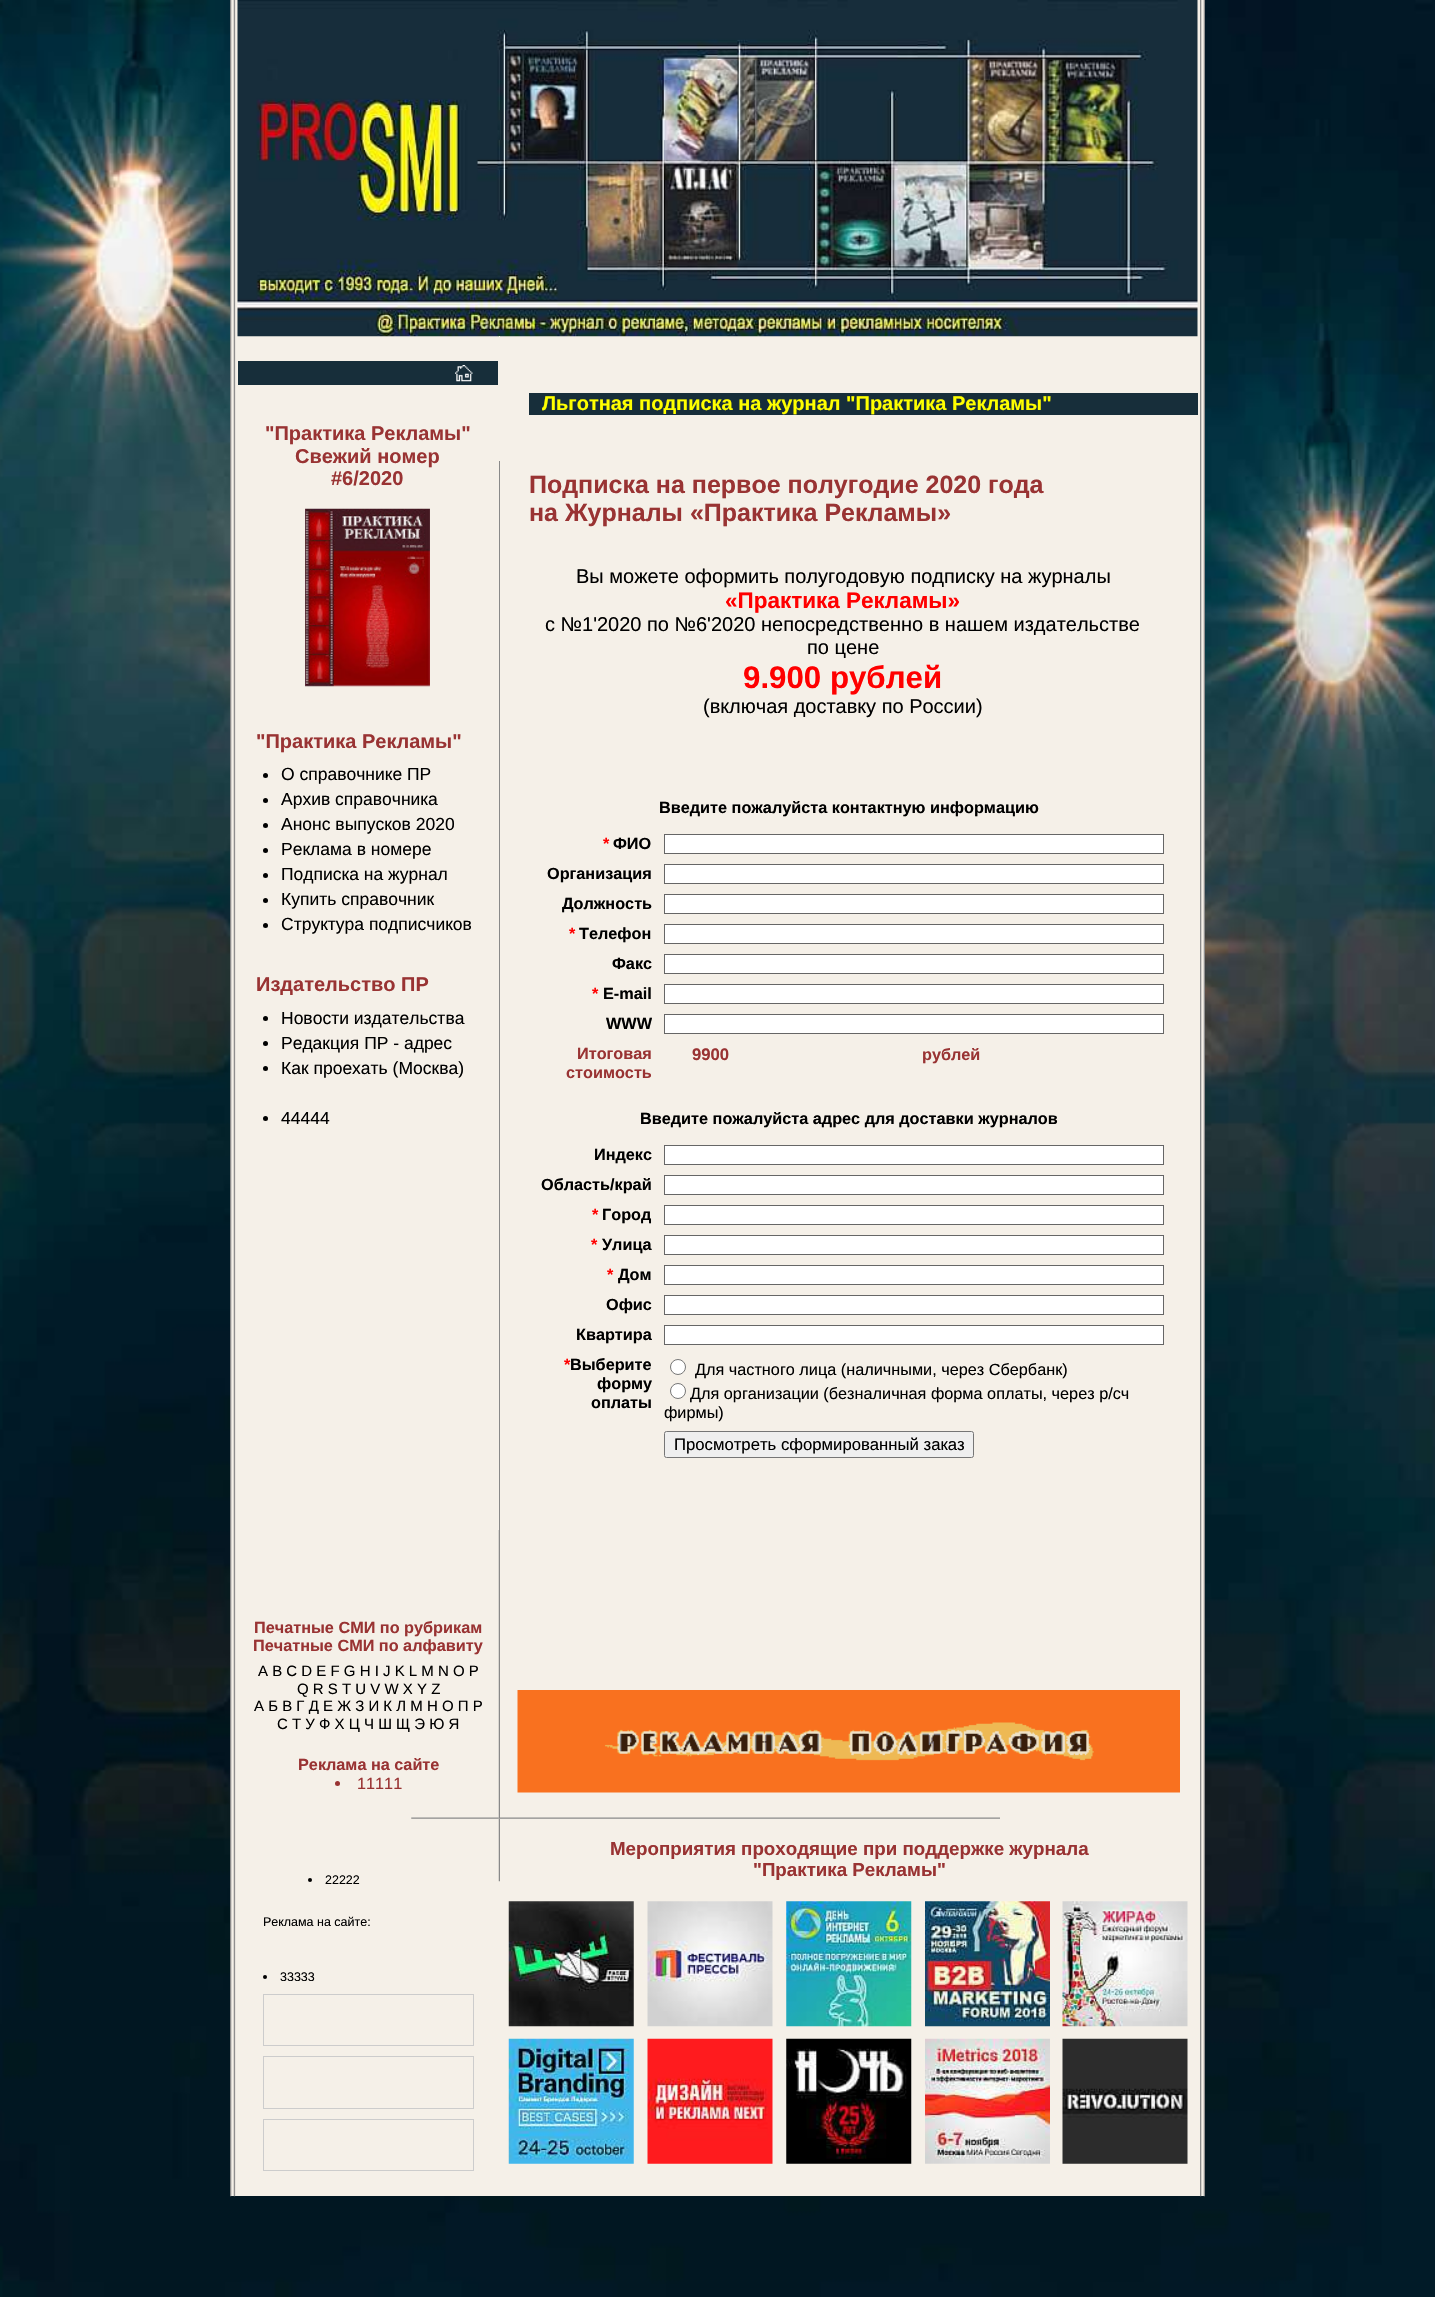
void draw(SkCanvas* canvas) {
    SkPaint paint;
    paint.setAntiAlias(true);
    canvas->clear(0xFFFFFFFF);
    canvas->drawImageRect(SkImages::DeferredFromEncodedData(SkData::MakeFromFileName("img1.png")), SkRect::MakeXYWH(0, 0, 1435, 2297), SkSamplingOptions());
    paint.setColor(0xFFF5F0E8);
    canvas->drawRect(SkRect::MakeXYWH(231, 0, 974, 2196), paint);
    canvas->drawImageRect(SkImages::DeferredFromEncodedData(SkData::MakeFromFileName("img2.png")), SkRect::MakeXYWH(230, 0, 6, 2197), SkSamplingOptions());
    canvas->drawImageRect(SkImages::DeferredFromEncodedData(SkData::MakeFromFileName("img3.png")), SkRect::MakeXYWH(237, 0, 961, 337), SkSamplingOptions());
    paint.setColor(0xFF172E3A);
    canvas->drawRect(SkRect::MakeXYWH(238, 361, 260, 24), paint);
    canvas->drawImageRect(SkImages::DeferredFromEncodedData(SkData::MakeFromFileName("img4.png")), SkRect::MakeXYWH(455, 365, 18, 17), SkSamplingOptions());
    SkFont font1(fontMgr->matchFamilyStyle("Liberation Sans", SkFontStyle::Bold()), 20);
    font1.setSubpixel(true);
    paint.setColor(0xFF993333);
    canvas->drawString("\"Практика Рекламы\"", 265, 440, font1, paint);
    canvas->drawString("Свежий номер", 295, 463, font1, paint);
    canvas->drawString("#6/2020", 331, 485, font1, paint);
    canvas->drawImageRect(SkImages::DeferredFromEncodedData(SkData::MakeFromFileName("img5.png")), SkRect::MakeXYWH(305, 508, 125, 179), SkSamplingOptions());
    canvas->drawString("\"Практика Рекламы\"", 256, 748, font1, paint);
    paint.setColor(0xFF000000);
    canvas->drawCircle(265.5f, 775.5f, 2.5f, paint);
    SkFont font2(fontMgr->matchFamilyStyle("Liberation Sans", SkFontStyle::Normal()), 17.5f);
    font2.setSubpixel(true);
    canvas->drawString("О справочнике ПР", 281, 780, font2, paint);
    canvas->drawCircle(265.5f, 800.5f, 2.5f, paint);
    canvas->drawString("Архив справочника", 281, 805, font2, paint);
    canvas->drawCircle(265.5f, 825.5f, 2.5f, paint);
    canvas->drawString("Анонс выпусков 2020", 281, 830, font2, paint);
    canvas->drawCircle(265.5f, 850.5f, 2.5f, paint);
    canvas->drawString("Реклама в номере", 281, 855, font2, paint);
    canvas->drawCircle(265.5f, 875.5f, 2.5f, paint);
    canvas->drawString("Подписка на журнал", 281, 880, font2, paint);
    canvas->drawCircle(265.5f, 900.5f, 2.5f, paint);
    canvas->drawString("Купить справочник", 281, 905, font2, paint);
    canvas->drawCircle(265.5f, 925.5f, 2.5f, paint);
    canvas->drawString("Структура подписчиков", 281, 930, font2, paint);
    paint.setColor(0xFF993333);
    canvas->drawString("Издательство ПР", 256, 991, font1, paint);
    paint.setColor(0xFF000000);
    canvas->drawCircle(265.5f, 1018.5f, 2.5f, paint);
    canvas->drawString("Новости издательства", 281, 1024, font2, paint);
    canvas->drawCircle(265.5f, 1043.5f, 2.5f, paint);
    canvas->drawString("Редакция ПР - адрес", 281, 1049, font2, paint);
    canvas->drawCircle(265.5f, 1068.5f, 2.5f, paint);
    canvas->drawString("Как проехать (Москва)", 281, 1074, font2, paint);
    canvas->drawCircle(265.5f, 1118.5f, 2.5f, paint);
    canvas->drawString("44444", 281, 1124, font2, paint);
    paint.setColor(0xFF898989);
    canvas->drawRect(SkRect::MakeXYWH(499, 461, 1, 1357), paint);
    paint.setColor(0xFFF5F0E8);
    canvas->drawRect(SkRect::MakeXYWH(499, 336, 1, 1), paint);
    paint.setColor(0xFF172E3A);
    canvas->drawRect(SkRect::MakeXYWH(529, 393, 669, 22), paint);
    paint.setColor(0xFFFFFF00);
    canvas->drawString("Льготная подписка на журнал \"Практика Рекламы\"", 542, 410, font1, paint);
    SkFont font3(fontMgr->matchFamilyStyle("Liberation Sans", SkFontStyle::Bold()), 25);
    font3.setSubpixel(true);
    paint.setColor(0xFF993333);
    canvas->drawString("Подписка на первое полугодие 2020 года", 529, 493, font3, paint);
    canvas->drawString("на Журналы «Практика Рекламы»", 529, 521, font3, paint);
    SkFont font4(fontMgr->matchFamilyStyle("Liberation Sans", SkFontStyle::Normal()), 20);
    font4.setSubpixel(true);
    paint.setColor(0xFF000000);
    canvas->drawString("Вы можете оформить полугодовую подписку на журналы", 576, 583, font4, paint);
    SkFont font5(fontMgr->matchFamilyStyle("Liberation Sans", SkFontStyle::Bold()), 22.5f);
    font5.setSubpixel(true);
    paint.setColor(0xFFFF0000);
    canvas->drawString("«Практика Рекламы»", 725, 608, font5, paint);
    paint.setColor(0xFF000000);
    canvas->drawString("с №1'2020 по №6'2020 непосредственно в нашем издательстве", 545, 631, font4, paint);
    canvas->drawString("по цене", 807, 654, font4, paint);
    SkFont font6(fontMgr->matchFamilyStyle("Liberation Sans", SkFontStyle::Bold()), 31.25f);
    font6.setSubpixel(true);
    paint.setColor(0xFFFF0000);
    canvas->drawString("9.900 рублей", 743, 688, font6, paint);
    paint.setColor(0xFF000000);
    canvas->drawString("(включая доставку по России)", 703, 713, font4, paint);
    SkFont font7(fontMgr->matchFamilyStyle("Liberation Sans", SkFontStyle::Bold()), 16.25f);
    font7.setSubpixel(true);
    canvas->drawString("Введите пожалуйста контактную информацию", 659, 813, font7, paint);
    paint.setColor(0xFFFF0000);
    canvas->drawString("*", 603, 849, font7, paint);
    paint.setColor(0xFF000000);
    canvas->drawString("ФИО", 613, 849, font7, paint);
    paint.setColor(0xFFFFFFFF);
    canvas->drawRect(SkRect::MakeXYWH(664.5f, 834.5f, 499, 19), paint);
    paint.setStyle(SkPaint::kStroke_Style);
    paint.setStrokeWidth(1);
    paint.setColor(0xFF666666);
    canvas->drawRect(SkRect::MakeXYWH(664.5f, 834.5f, 499, 19), paint);
    paint.setStyle(SkPaint::kFill_Style);
    paint.setColor(0xFF000000);
    canvas->drawString("Организация", 547, 879, font7, paint);
    paint.setColor(0xFFFFFFFF);
    canvas->drawRect(SkRect::MakeXYWH(664.5f, 864.5f, 499, 19), paint);
    paint.setStyle(SkPaint::kStroke_Style);
    paint.setColor(0xFF666666);
    canvas->drawRect(SkRect::MakeXYWH(664.5f, 864.5f, 499, 19), paint);
    paint.setStyle(SkPaint::kFill_Style);
    paint.setColor(0xFF000000);
    canvas->drawString("Должность", 562, 909, font7, paint);
    paint.setColor(0xFFFFFFFF);
    canvas->drawRect(SkRect::MakeXYWH(664.5f, 894.5f, 499, 19), paint);
    paint.setStyle(SkPaint::kStroke_Style);
    paint.setColor(0xFF666666);
    canvas->drawRect(SkRect::MakeXYWH(664.5f, 894.5f, 499, 19), paint);
    paint.setStyle(SkPaint::kFill_Style);
    paint.setColor(0xFFFF0000);
    canvas->drawString("*", 569, 939, font7, paint);
    paint.setColor(0xFF000000);
    canvas->drawString("Телефон", 579, 939, font7, paint);
    paint.setColor(0xFFFFFFFF);
    canvas->drawRect(SkRect::MakeXYWH(664.5f, 924.5f, 499, 19), paint);
    paint.setStyle(SkPaint::kStroke_Style);
    paint.setColor(0xFF666666);
    canvas->drawRect(SkRect::MakeXYWH(664.5f, 924.5f, 499, 19), paint);
    paint.setStyle(SkPaint::kFill_Style);
    paint.setColor(0xFF000000);
    canvas->drawString("Факс", 612, 969, font7, paint);
    paint.setColor(0xFFFFFFFF);
    canvas->drawRect(SkRect::MakeXYWH(664.5f, 954.5f, 499, 19), paint);
    paint.setStyle(SkPaint::kStroke_Style);
    paint.setColor(0xFF666666);
    canvas->drawRect(SkRect::MakeXYWH(664.5f, 954.5f, 499, 19), paint);
    paint.setStyle(SkPaint::kFill_Style);
    paint.setColor(0xFFFF0000);
    canvas->drawString("*", 592, 999, font7, paint);
    paint.setColor(0xFF000000);
    canvas->drawString("E-mail", 603, 999, font7, paint);
    paint.setColor(0xFFFFFFFF);
    canvas->drawRect(SkRect::MakeXYWH(664.5f, 984.5f, 499, 19), paint);
    paint.setStyle(SkPaint::kStroke_Style);
    paint.setColor(0xFF666666);
    canvas->drawRect(SkRect::MakeXYWH(664.5f, 984.5f, 499, 19), paint);
    paint.setStyle(SkPaint::kFill_Style);
    paint.setColor(0xFF000000);
    canvas->drawString("WWW", 606, 1029, font7, paint);
    paint.setColor(0xFFFFFFFF);
    canvas->drawRect(SkRect::MakeXYWH(664.5f, 1014.5f, 499, 19), paint);
    paint.setStyle(SkPaint::kStroke_Style);
    paint.setColor(0xFF666666);
    canvas->drawRect(SkRect::MakeXYWH(664.5f, 1014.5f, 499, 19), paint);
    paint.setStyle(SkPaint::kFill_Style);
    paint.setColor(0xFF993333);
    canvas->drawString("Итоговая", 577, 1059, font7, paint);
    canvas->drawString("стоимость", 566, 1078, font7, paint);
    SkFont font8(fontMgr->matchFamilyStyle("Liberation Sans", SkFontStyle::Bold()), 16.7f);
    font8.setSubpixel(true);
    canvas->drawString("9900", 692, 1060, font8, paint);
    canvas->drawString("рублей", 922, 1060, font7, paint);
    paint.setColor(0xFF000000);
    canvas->drawString("Введите пожалуйста адрес для доставки журналов", 640, 1124, font7, paint);
    canvas->drawString("Индекс", 594, 1160, font7, paint);
    paint.setColor(0xFFFFFFFF);
    canvas->drawRect(SkRect::MakeXYWH(664.5f, 1145.5f, 499, 19), paint);
    paint.setStyle(SkPaint::kStroke_Style);
    paint.setColor(0xFF666666);
    canvas->drawRect(SkRect::MakeXYWH(664.5f, 1145.5f, 499, 19), paint);
    paint.setStyle(SkPaint::kFill_Style);
    paint.setColor(0xFF000000);
    canvas->drawString("Область/край", 541, 1190, font7, paint);
    paint.setColor(0xFFFFFFFF);
    canvas->drawRect(SkRect::MakeXYWH(664.5f, 1175.5f, 499, 19), paint);
    paint.setStyle(SkPaint::kStroke_Style);
    paint.setColor(0xFF666666);
    canvas->drawRect(SkRect::MakeXYWH(664.5f, 1175.5f, 499, 19), paint);
    paint.setStyle(SkPaint::kFill_Style);
    paint.setColor(0xFFFF0000);
    canvas->drawString("*", 592, 1220, font7, paint);
    paint.setColor(0xFF000000);
    canvas->drawString("Город", 602, 1220, font7, paint);
    paint.setColor(0xFFFFFFFF);
    canvas->drawRect(SkRect::MakeXYWH(664.5f, 1205.5f, 499, 19), paint);
    paint.setStyle(SkPaint::kStroke_Style);
    paint.setColor(0xFF666666);
    canvas->drawRect(SkRect::MakeXYWH(664.5f, 1205.5f, 499, 19), paint);
    paint.setStyle(SkPaint::kFill_Style);
    paint.setColor(0xFFFF0000);
    canvas->drawString("*", 591, 1250, font7, paint);
    paint.setColor(0xFF000000);
    canvas->drawString("Улица", 602, 1250, font7, paint);
    paint.setColor(0xFFFFFFFF);
    canvas->drawRect(SkRect::MakeXYWH(664.5f, 1235.5f, 499, 19), paint);
    paint.setStyle(SkPaint::kStroke_Style);
    paint.setColor(0xFF666666);
    canvas->drawRect(SkRect::MakeXYWH(664.5f, 1235.5f, 499, 19), paint);
    paint.setStyle(SkPaint::kFill_Style);
    paint.setColor(0xFFFF0000);
    canvas->drawString("*", 607, 1280, font7, paint);
    paint.setColor(0xFF000000);
    canvas->drawString("Дом", 618, 1280, font7, paint);
    paint.setColor(0xFFFFFFFF);
    canvas->drawRect(SkRect::MakeXYWH(664.5f, 1265.5f, 499, 19), paint);
    paint.setStyle(SkPaint::kStroke_Style);
    paint.setColor(0xFF666666);
    canvas->drawRect(SkRect::MakeXYWH(664.5f, 1265.5f, 499, 19), paint);
    paint.setStyle(SkPaint::kFill_Style);
    paint.setColor(0xFF000000);
    canvas->drawString("Офис", 606, 1310, font7, paint);
    paint.setColor(0xFFFFFFFF);
    canvas->drawRect(SkRect::MakeXYWH(664.5f, 1295.5f, 499, 19), paint);
    paint.setStyle(SkPaint::kStroke_Style);
    paint.setColor(0xFF666666);
    canvas->drawRect(SkRect::MakeXYWH(664.5f, 1295.5f, 499, 19), paint);
    paint.setStyle(SkPaint::kFill_Style);
    paint.setColor(0xFF000000);
    canvas->drawString("Квартира", 576, 1340, font7, paint);
    paint.setColor(0xFFFFFFFF);
    canvas->drawRect(SkRect::MakeXYWH(664.5f, 1325.5f, 499, 19), paint);
    paint.setStyle(SkPaint::kStroke_Style);
    paint.setColor(0xFF666666);
    canvas->drawRect(SkRect::MakeXYWH(664.5f, 1325.5f, 499, 19), paint);
    paint.setStyle(SkPaint::kFill_Style);
    paint.setColor(0xFFFF0000);
    canvas->drawString("*", 564, 1370, font7, paint);
    paint.setColor(0xFF000000);
    canvas->drawString("Выберите", 570, 1370, font7, paint);
    canvas->drawString("форму", 597, 1389, font7, paint);
    canvas->drawString("оплаты", 591, 1408, font7, paint);
    paint.setColor(0xFFFFFFFF);
    canvas->drawCircle(678, 1367, 7.5f, paint);
    paint.setStyle(SkPaint::kStroke_Style);
    paint.setColor(0xFF767676);
    canvas->drawCircle(678, 1367, 7.5f, paint);
    SkFont font9(fontMgr->matchFamilyStyle("Liberation Sans", SkFontStyle::Normal()), 16.25f);
    font9.setSubpixel(true);
    paint.setStyle(SkPaint::kFill_Style);
    paint.setColor(0xFF000000);
    canvas->drawString("Для частного лица (наличными, через Сбербанк)", 695, 1375, font9, paint);
    paint.setColor(0xFFFFFFFF);
    canvas->drawCircle(678, 1391, 7.5f, paint);
    paint.setStyle(SkPaint::kStroke_Style);
    paint.setColor(0xFF767676);
    canvas->drawCircle(678, 1391, 7.5f, paint);
    paint.setStyle(SkPaint::kFill_Style);
    paint.setColor(0xFF000000);
    canvas->drawString("Для организации (безналичная форма оплаты, через р/сч", 690, 1399, font9, paint);
    canvas->drawString("фирмы)", 664, 1418, font9, paint);
    paint.setColor(0xFFEFEFEF);
    canvas->drawRoundRect(SkRect::MakeXYWH(664.5f, 1431.5f, 309, 26), 2, 2, paint);
    paint.setStyle(SkPaint::kStroke_Style);
    paint.setColor(0xFF767676);
    canvas->drawRoundRect(SkRect::MakeXYWH(664.5f, 1431.5f, 309, 26), 2, 2, paint);
    SkFont font10(fontMgr->matchFamilyStyle("Liberation Sans", SkFontStyle::Normal()), 16.7f);
    font10.setSubpixel(true);
    paint.setStyle(SkPaint::kFill_Style);
    paint.setColor(0xFF000000);
    canvas->drawString("Просмотреть сформированный заказ", 674, 1450, font10, paint);
    paint.setColor(0xFF993333);
    canvas->drawString("Печатные СМИ по рубрикам", 254, 1633, font7, paint);
    canvas->drawString("Печатные СМИ по алфавиту", 253, 1651, font7, paint);
    SkFont font11(fontMgr->matchFamilyStyle("Liberation Sans", SkFontStyle::Normal()), 15);
    font11.setSubpixel(true);
    paint.setColor(0xFF000000);
    canvas->drawString("A B C D E F G H I J K L M N O P", 258, 1676, font11, paint);
    canvas->drawString("Q R S T U V W X Y Z", 297, 1694, font11, paint);
    canvas->drawString("А Б В Г Д Е Ж З И К Л М Н О П Р", 254, 1711, font11, paint);
    canvas->drawString("С Т У Ф Х Ц Ч Ш Щ Э Ю Я", 277, 1729, font11, paint);
    paint.setColor(0xFF993333);
    canvas->drawString("Реклама на сайте", 298, 1770, font7, paint);
    canvas->drawCircle(337.5f, 1783.5f, 2.5f, paint);
    canvas->drawString("11111", 357, 1789, font9, paint);
    canvas->drawImageRect(SkImages::DeferredFromEncodedData(SkData::MakeFromFileName("img6.png")), SkRect::MakeXYWH(498, 1530, 1, 288), SkSamplingOptions());
    canvas->drawImageRect(SkImages::DeferredFromEncodedData(SkData::MakeFromFileName("img7.png")), SkRect::MakeXYWH(517, 1690, 663, 103), SkSamplingOptions());
    canvas->drawImageRect(SkImages::DeferredFromEncodedData(SkData::MakeFromFileName("img8.png")), SkRect::MakeXYWH(411, 1817, 88, 2), SkSamplingOptions());
    canvas->drawImageRect(SkImages::DeferredFromEncodedData(SkData::MakeFromFileName("img9.png")), SkRect::MakeXYWH(498, 1817, 2, 2), SkSamplingOptions());
    canvas->drawImageRect(SkImages::DeferredFromEncodedData(SkData::MakeFromFileName("img10.png")), SkRect::MakeXYWH(500, 1817, 500, 2), SkSamplingOptions());
    canvas->drawImageRect(SkImages::DeferredFromEncodedData(SkData::MakeFromFileName("img11.png")), SkRect::MakeXYWH(498, 1818, 2, 64), SkSamplingOptions());
    SkFont font12(fontMgr->matchFamilyStyle("Liberation Sans", SkFontStyle::Bold()), 18.75f);
    font12.setSubpixel(true);
    canvas->drawString("Мероприятия проходящие при поддержке журнала", 610, 1855, font12, paint);
    canvas->drawString("\"Практика Рекламы\"", 753, 1876, font12, paint);
    canvas->drawImageRect(SkImages::DeferredFromEncodedData(SkData::MakeFromFileName("img12.png")), SkRect::MakeXYWH(508, 1901, 126, 126), SkSamplingOptions());
    canvas->drawImageRect(SkImages::DeferredFromEncodedData(SkData::MakeFromFileName("img13.png")), SkRect::MakeXYWH(647, 1901, 126, 126), SkSamplingOptions());
    canvas->drawImageRect(SkImages::DeferredFromEncodedData(SkData::MakeFromFileName("img14.png")), SkRect::MakeXYWH(786, 1901, 126, 126), SkSamplingOptions());
    canvas->drawImageRect(SkImages::DeferredFromEncodedData(SkData::MakeFromFileName("img15.png")), SkRect::MakeXYWH(925, 1901, 125, 126), SkSamplingOptions());
    canvas->drawImageRect(SkImages::DeferredFromEncodedData(SkData::MakeFromFileName("img16.png")), SkRect::MakeXYWH(1062, 1901, 126, 126), SkSamplingOptions());
    canvas->drawImageRect(SkImages::DeferredFromEncodedData(SkData::MakeFromFileName("img17.png")), SkRect::MakeXYWH(508, 2038, 126, 126), SkSamplingOptions());
    canvas->drawImageRect(SkImages::DeferredFromEncodedData(SkData::MakeFromFileName("img18.png")), SkRect::MakeXYWH(647, 2038, 126, 126), SkSamplingOptions());
    canvas->drawImageRect(SkImages::DeferredFromEncodedData(SkData::MakeFromFileName("img19.png")), SkRect::MakeXYWH(786, 2038, 126, 126), SkSamplingOptions());
    canvas->drawImageRect(SkImages::DeferredFromEncodedData(SkData::MakeFromFileName("img20.png")), SkRect::MakeXYWH(925, 2038, 125, 126), SkSamplingOptions());
    canvas->drawImageRect(SkImages::DeferredFromEncodedData(SkData::MakeFromFileName("img21.png")), SkRect::MakeXYWH(1062, 2038, 126, 126), SkSamplingOptions());
    paint.setColor(0xFF000000);
    canvas->drawCircle(310, 1880, 2, paint);
    SkFont font13(fontMgr->matchFamilyStyle("Liberation Sans", SkFontStyle::Normal()), 12.5f);
    font13.setSubpixel(true);
    canvas->drawString("22222", 325, 1884, font13, paint);
    canvas->drawString("Реклама на сайте:", 263, 1926, font13, paint);
    canvas->drawCircle(265, 1977, 2, paint);
    canvas->drawString("33333", 280, 1981, font13, paint);
    paint.setStyle(SkPaint::kStroke_Style);
    paint.setColor(0xFFCCCCCC);
    canvas->drawRect(SkRect::MakeXYWH(263.5f, 1994.5f, 210, 51), paint);
    canvas->drawRect(SkRect::MakeXYWH(263.5f, 2056.5f, 210, 52), paint);
    canvas->drawRect(SkRect::MakeXYWH(263.5f, 2119.5f, 210, 51), paint);
    canvas->drawImageRect(SkImages::DeferredFromEncodedData(SkData::MakeFromFileName("img22.png")), SkRect::MakeXYWH(1200, 0, 5, 2197), SkSamplingOptions());
}
